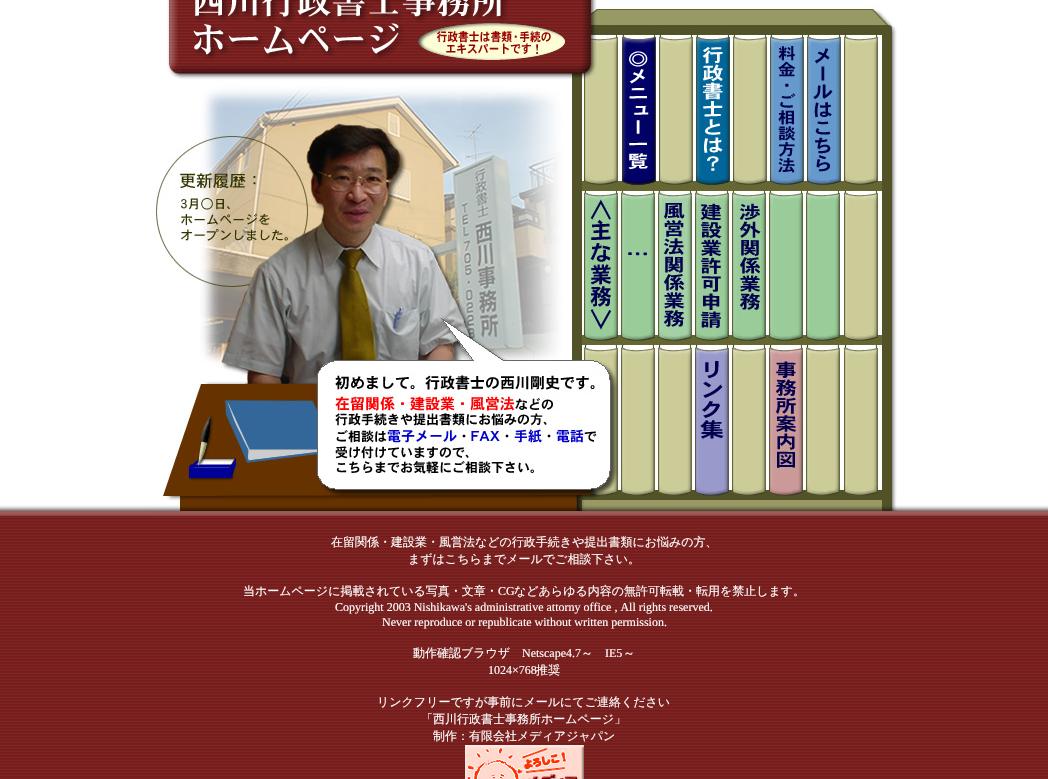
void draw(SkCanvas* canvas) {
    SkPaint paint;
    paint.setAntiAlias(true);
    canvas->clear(0xFFFFFFFF);
    canvas->drawImageRect(SkImages::DeferredFromEncodedData(SkData::MakeFromFileName("img1.png")), SkRect::MakeXYWH(0, 516, 1048, 263), SkSamplingOptions());
    canvas->drawImageRect(SkImages::DeferredFromEncodedData(SkData::MakeFromFileName("img2.png")), SkRect::MakeXYWH(0, 0, 1048, 516), SkSamplingOptions());
    canvas->drawImageRect(SkImages::DeferredFromEncodedData(SkData::MakeFromFileName("img3.png")), SkRect::MakeXYWH(167, 0, 419, 169), SkSamplingOptions());
    canvas->drawImageRect(SkImages::DeferredFromEncodedData(SkData::MakeFromFileName("img4.png")), SkRect::MakeXYWH(586, 0, 311, 512), SkSamplingOptions());
    canvas->drawImageRect(SkImages::DeferredFromEncodedData(SkData::MakeFromFileName("img5.png")), SkRect::MakeXYWH(152, 169, 434, 161), SkSamplingOptions());
    canvas->drawImageRect(SkImages::DeferredFromEncodedData(SkData::MakeFromFileName("img6.png")), SkRect::MakeXYWH(151, 330, 435, 186), SkSamplingOptions());
    SkFont font1(fontMgr->matchFamilyStyle("WenQuanYi Zen Hei", SkFontStyle(500, SkFontStyle::kNormal_Width, SkFontStyle::kUpright_Slant)), 12);
    font1.setSubpixel(true);
    paint.setColor(0xFFFFFFFF);
    canvas->drawString("在留関係・建設業・風営法などの行政手続きや提出書類にお悩みの方、", 331, 546, font1, paint);
    canvas->drawString("まずはこちらまでメールでご相談下さい。", 408, 563, font1, paint);
    canvas->drawString("当ホームページに掲載されている写真・文章・", 243, 595, font1, paint);
    SkFont font2(fontMgr->matchFamilyStyle("Liberation Serif", SkFontStyle::Normal()), 12);
    font2.setSubpixel(true);
    canvas->drawString("CG", 498, 595, font2, paint);
    canvas->drawString("などあらゆる内容の無許可転載・転用を禁止します。", 514, 595, font1, paint);
    canvas->drawString("Copyright 2003 Nishikawa's administrative attorny office , All rights reserved.", 335, 611, font2, paint);
    canvas->drawString("Never reproduce or republicate without written permission.", 382, 626, font2, paint);
    canvas->drawString("動作確認ブラウザ", 413, 657, font1, paint);
    canvas->drawString("Netscape4.7", 522, 657, font2, paint);
    canvas->drawString("～", 581, 657, font1, paint);
    canvas->drawString("IE5", 605, 657, font2, paint);
    canvas->drawString("～", 623, 657, font1, paint);
    canvas->drawString("1024×768", 488, 674, font2, paint);
    canvas->drawString("推奨", 536, 674, font1, paint);
    canvas->drawString("リンクフリーですが事前にメールにてご連絡ください", 377, 706, font1, paint);
    canvas->drawString("「西川行政書士事務所ホームページ」", 421, 723, font1, paint);
    canvas->drawString("制作：有限会社メディアジャパン", 433, 740, font1, paint);
    canvas->drawImageRect(SkImages::DeferredFromEncodedData(SkData::MakeFromFileName("img7.png")), SkRect::MakeXYWH(465, 745, 119, 34), SkSamplingOptions());
}
